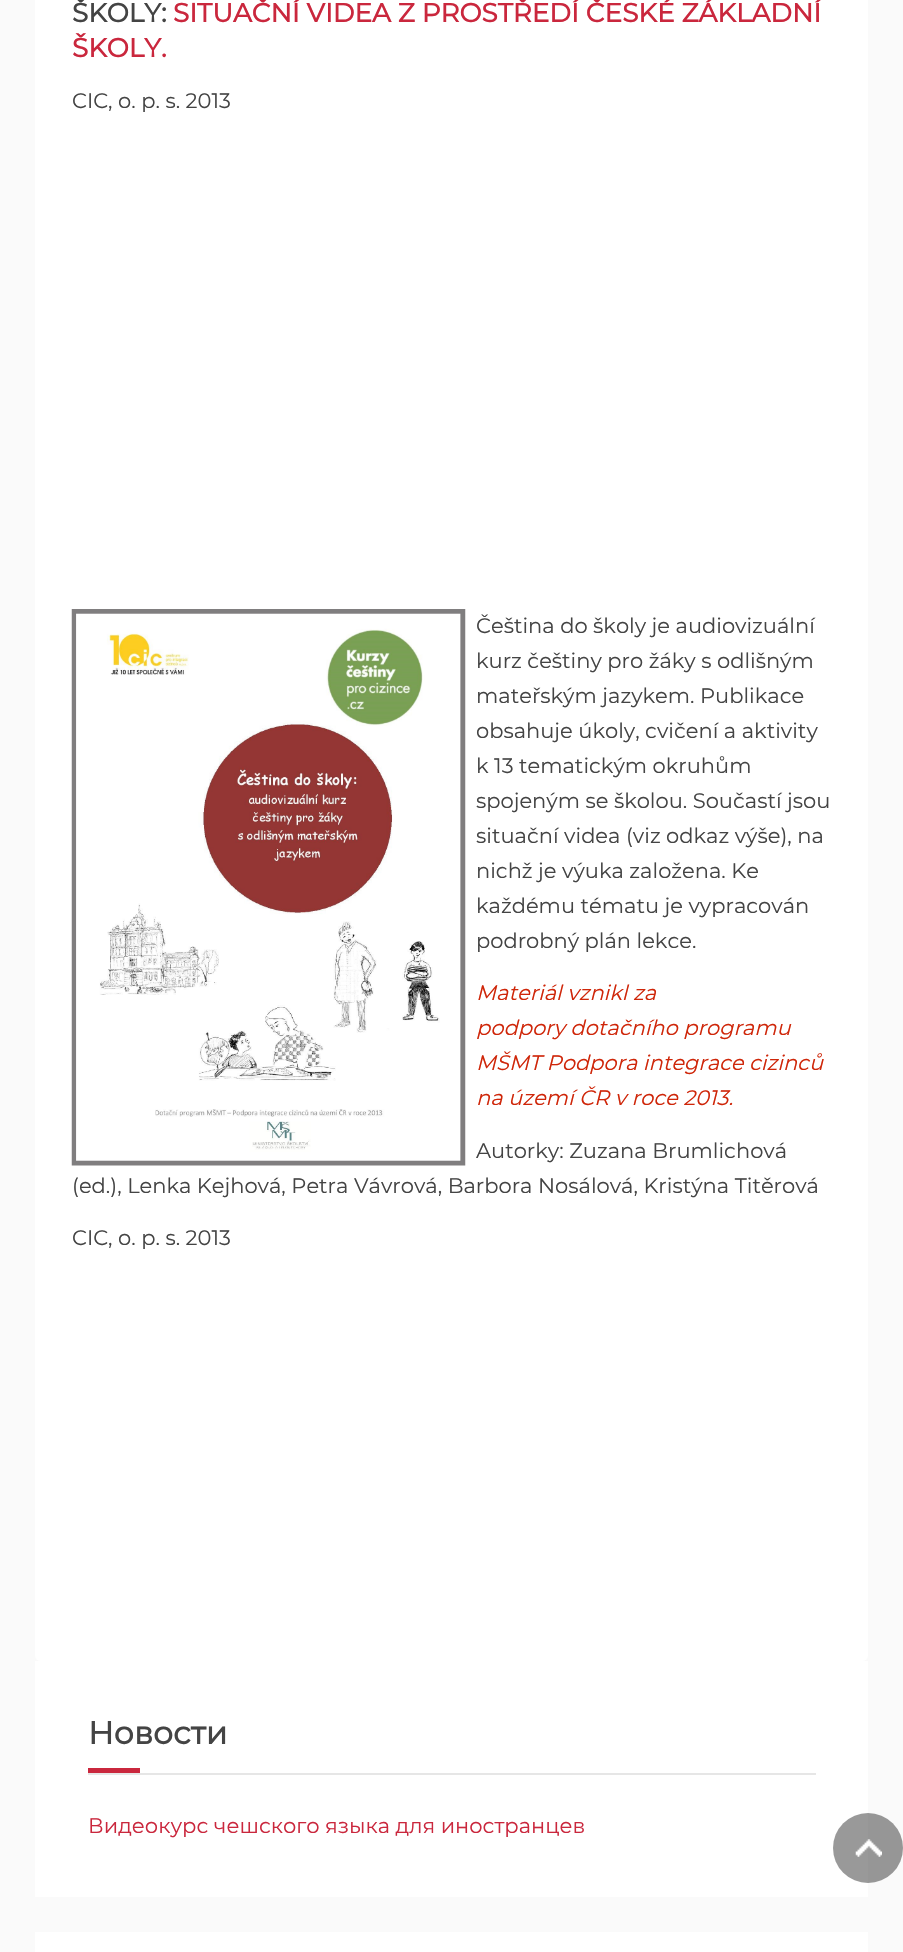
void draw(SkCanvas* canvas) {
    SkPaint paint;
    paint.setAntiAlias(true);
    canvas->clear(0xFFFAFAFA);
    paint.setColor(0xFFFFFFFF);
    canvas->drawRoundRect(SkRect::MakeXYWH(35, -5, 833, 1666), 5, 5, paint);
    SkFont font1(fontMgr->matchFamilyStyle("Montserrat", SkFontStyle::Bold()), 26.25f);
    font1.setSubpixel(true);
    paint.setColor(0xFF444444);
    canvas->drawString("ŠKOLY:", 72, 22, font1, paint);
    paint.setColor(0xFFCA273D);
    canvas->drawString("SITUAČNÍ VIDEA Z PROSTŘEDÍ ČESKÉ ZÁKLADNÍ", 173, 22, font1, paint);
    canvas->drawString("ŠKOLY.", 72, 57, font1, paint);
    SkFont font2(fontMgr->matchFamilyStyle("Montserrat", SkFontStyle(100, SkFontStyle::kNormal_Width, SkFontStyle::kUpright_Slant)), 21);
    font2.setSubpixel(true);
    paint.setColor(0xFF444444);
    canvas->drawString("CIC, o. p. s. 2013", 72, 108, font2, paint);
    canvas->drawImageRect(SkImages::DeferredFromEncodedData(SkData::MakeFromFileName("img1.png")), SkRect::MakeXYWH(71, 609, 395, 557), SkSamplingOptions());
    canvas->drawString("Čeština do školy je audiovizuální", 476, 633, font2, paint);
    canvas->drawString("kurz češtiny pro žáky s odlišným", 476, 668, font2, paint);
    canvas->drawString("mateřským jazykem. Publikace", 476, 703, font2, paint);
    canvas->drawString("obsahuje úkoly, cvičení a aktivity", 476, 738, font2, paint);
    canvas->drawString("k 13 tematickým okruhům", 476, 773, font2, paint);
    canvas->drawString("spojeným se školou. Součastí jsou", 476, 808, font2, paint);
    canvas->drawString("situační videa (viz odkaz výše), na", 476, 843, font2, paint);
    canvas->drawString("nichž je výuka založena. Ke", 476, 878, font2, paint);
    canvas->drawString("každému tématu je vypracován", 476, 913, font2, paint);
    canvas->drawString("podrobný plán lekce.", 476, 948, font2, paint);
    SkFont font3(fontMgr->matchFamilyStyle("Montserrat", SkFontStyle(100, SkFontStyle::kNormal_Width, SkFontStyle::kItalic_Slant)), 21);
    font3.setSubpixel(true);
    paint.setColor(0xFFCF2609);
    canvas->drawString("Materiál vznikl za", 476, 1000, font3, paint);
    canvas->drawString("podpory dotačního programu", 476, 1035, font3, paint);
    canvas->drawString("MŠMT Podpora integrace cizinců", 476, 1070, font3, paint);
    canvas->drawString("na území ČR v roce 2013.", 476, 1105, font3, paint);
    paint.setColor(0xFF444444);
    canvas->drawString("Autorky: Zuzana Brumlichová", 476, 1158, font2, paint);
    canvas->drawString("(ed.), Lenka Kejhová, Petra Vávrová, Barbora Nosálová, Kristýna Titěrová", 72, 1193, font2, paint);
    canvas->drawString("CIC, o. p. s. 2013", 72, 1245, font2, paint);
    paint.setColor(0xFFFFFFFF);
    canvas->drawRect(SkRect::MakeXYWH(35, 1661, 833, 236), paint);
    paint.setColor(0xFFE6E6E6);
    canvas->drawRect(SkRect::MakeXYWH(88, 1773, 728, 2), paint);
    SkFont font4(fontMgr->matchFamilyStyle("Montserrat", SkFontStyle::Bold()), 31.5f);
    font4.setSubpixel(true);
    paint.setColor(0xFF444444);
    canvas->drawString("Новости", 88, 1744, font4, paint);
    paint.setColor(0xFFCA273D);
    canvas->drawRect(SkRect::MakeXYWH(88, 1768, 52, 5), paint);
    canvas->drawString("Видеокурс чешского языка для иностранцев", 88, 1833, font2, paint);
    paint.setColor(0xFFFFFFFF);
    canvas->drawRect(SkRect::MakeXYWH(35, 1932, 833, 20), paint);
    paint.setColor(0x66000000);
    canvas->drawCircle(868, 1848, 35, paint);
    canvas->drawImageRect(SkImages::DeferredFromEncodedData(SkData::MakeFromFileName("img2.png")), SkRect::MakeXYWH(855, 1839, 27, 18), SkSamplingOptions());
}
